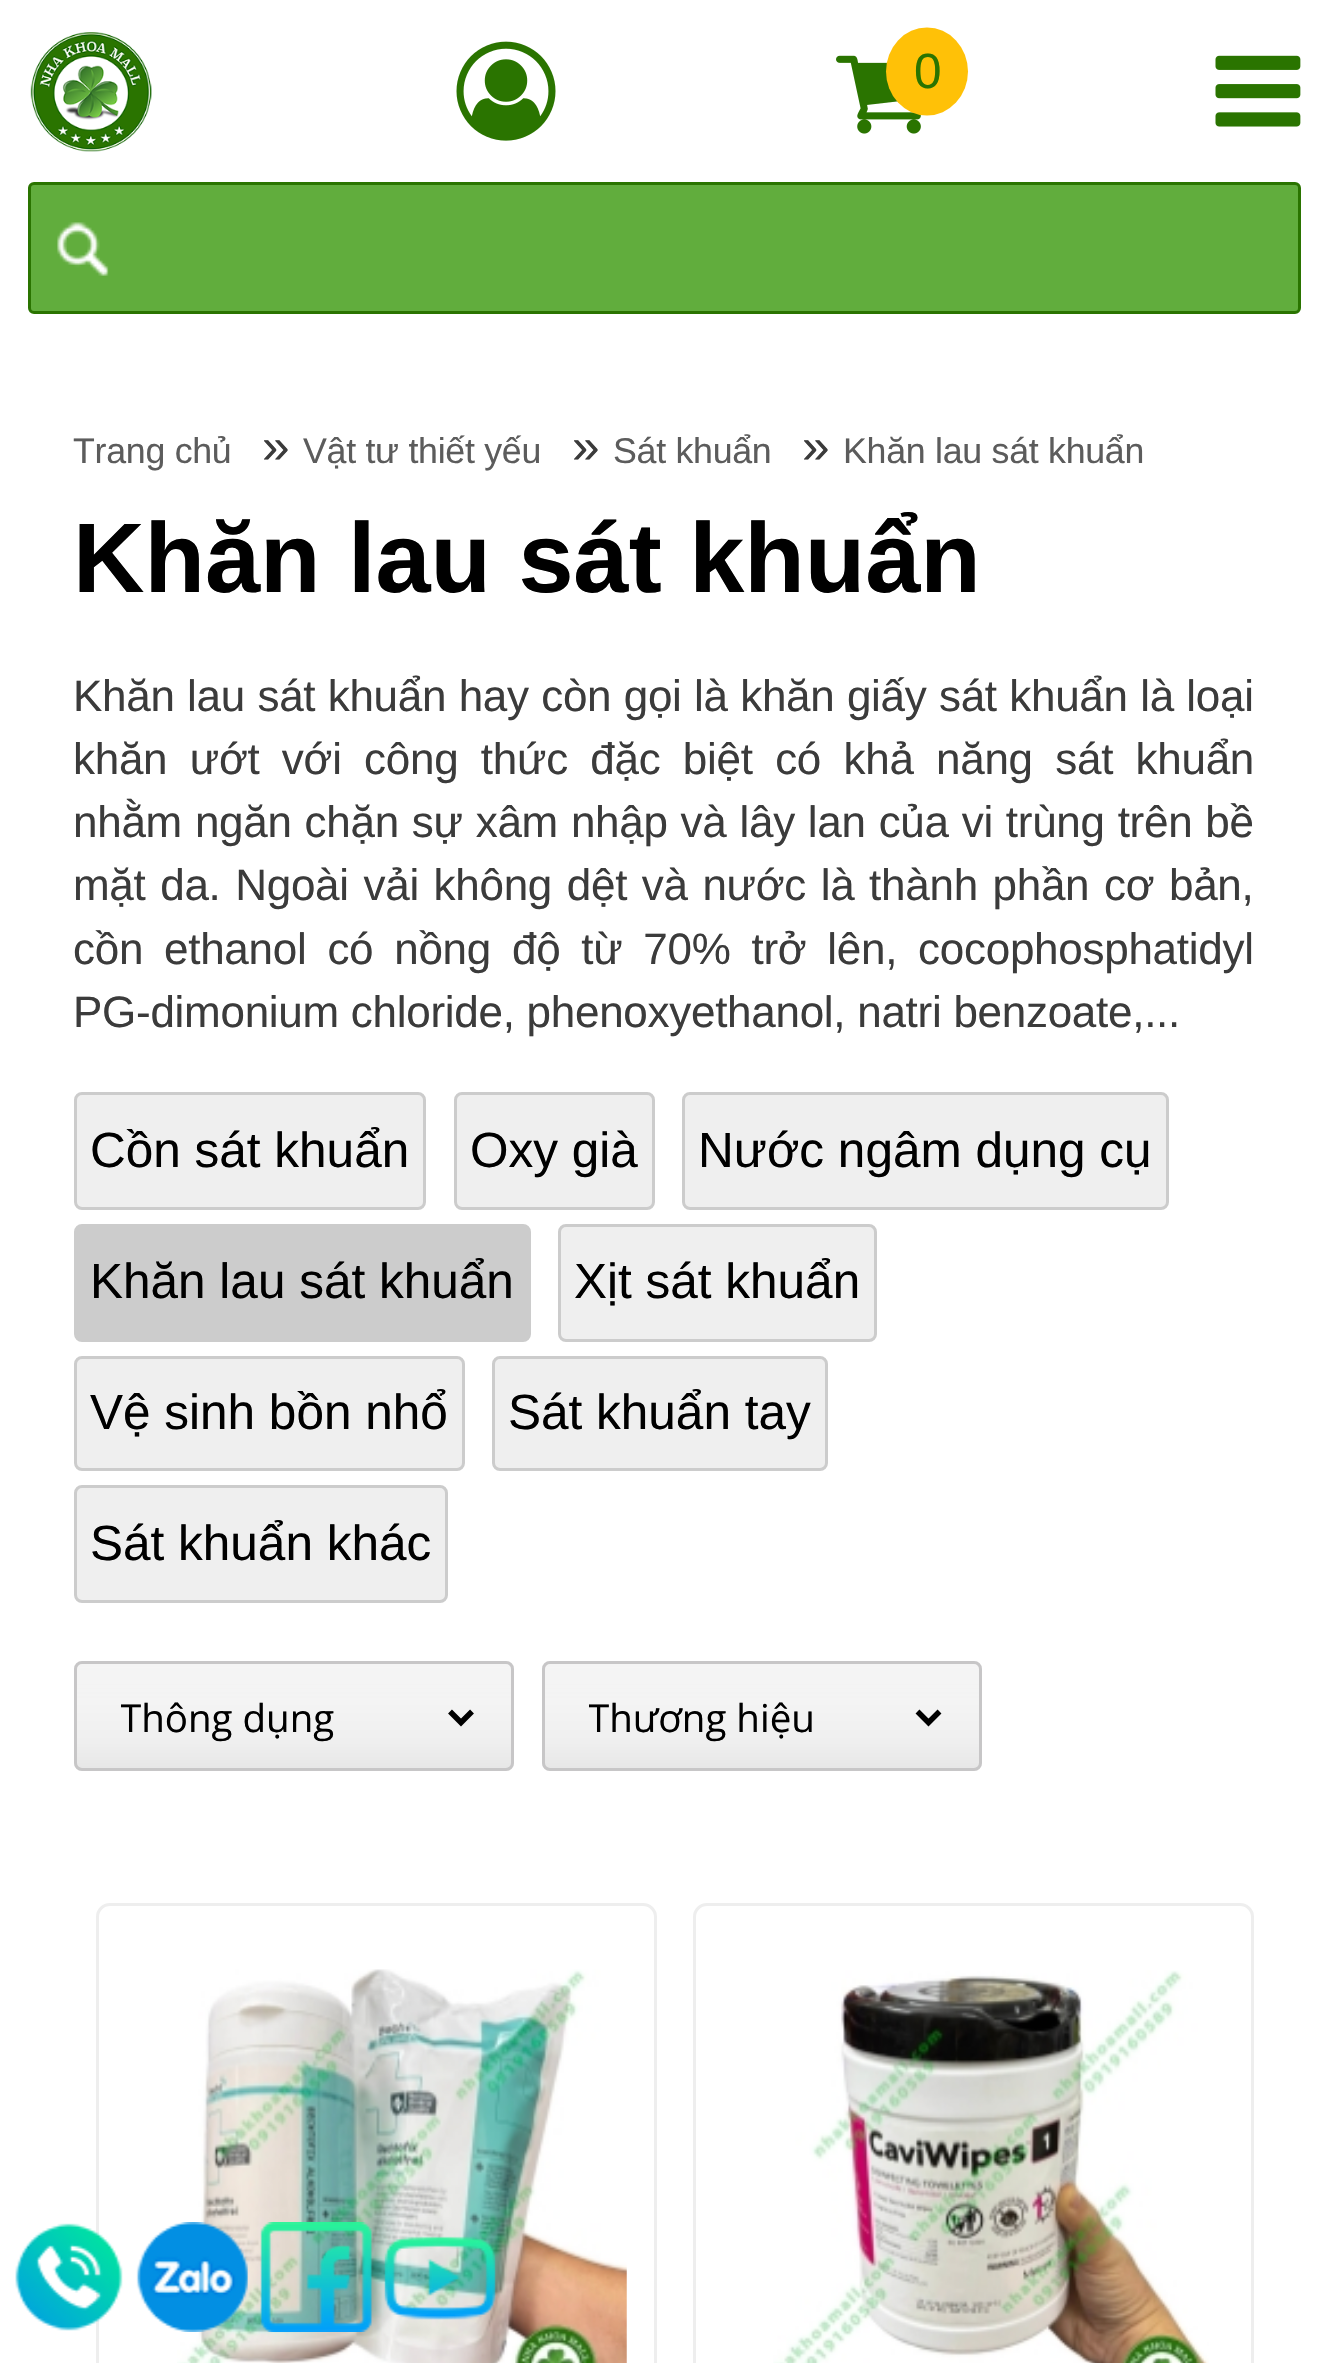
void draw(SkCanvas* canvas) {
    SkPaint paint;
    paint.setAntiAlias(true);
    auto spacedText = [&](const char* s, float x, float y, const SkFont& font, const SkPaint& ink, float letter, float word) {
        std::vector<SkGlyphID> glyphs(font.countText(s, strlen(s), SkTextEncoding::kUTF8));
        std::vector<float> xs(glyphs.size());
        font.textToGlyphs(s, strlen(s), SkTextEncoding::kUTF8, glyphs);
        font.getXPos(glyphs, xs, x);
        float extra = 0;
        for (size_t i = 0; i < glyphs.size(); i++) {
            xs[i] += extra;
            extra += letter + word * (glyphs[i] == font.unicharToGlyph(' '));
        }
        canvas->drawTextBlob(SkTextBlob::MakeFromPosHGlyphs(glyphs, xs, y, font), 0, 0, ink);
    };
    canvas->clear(0xFFFFFFFF);
    canvas->drawImageRect(SkImages::DeferredFromEncodedData(SkData::MakeFromFileName("img1.png")), SkRect::MakeXYWH(30, 32, 122, 120), SkSamplingOptions());
    canvas->drawImageRect(SkImages::DeferredFromEncodedData(SkData::MakeFromFileName("img2.png")), SkRect::MakeXYWH(456, 41, 100, 100), SkSamplingOptions());
    canvas->drawImageRect(SkImages::DeferredFromEncodedData(SkData::MakeFromFileName("img3.png")), SkRect::MakeXYWH(836, 55, 85, 79), SkSamplingOptions());
    paint.setColor(0xFFFFC107);
    canvas->drawOval(SkRect::MakeXYWH(886, 27.5f, 82, 88), paint);
    SkFont font1(fontMgr->matchFamilyStyle("Liberation Sans", SkFontStyle::Normal()), 49.5f);
    font1.setSubpixel(true);
    paint.setColor(0xFF2A7400);
    canvas->drawString("0", 914, 88, font1, paint);
    canvas->drawImageRect(SkImages::DeferredFromEncodedData(SkData::MakeFromFileName("img4.png")), SkRect::MakeXYWH(1215, 55, 86, 72), SkSamplingOptions());
    paint.setColor(0xFF61AD3D);
    canvas->drawRoundRect(SkRect::MakeXYWH(29.5f, 183.5f, 1270, 129), 4.5f, 4.5f, paint);
    paint.setStyle(SkPaint::kStroke_Style);
    paint.setStrokeWidth(3);
    paint.setColor(0xFF2A7400);
    canvas->drawRoundRect(SkRect::MakeXYWH(29.5f, 183.5f, 1270, 129), 4.5f, 4.5f, paint);
    canvas->drawImageRect(SkImages::DeferredFromEncodedData(SkData::MakeFromFileName("img5.png")), SkRect::MakeXYWH(57, 222, 52, 54), SkSamplingOptions());
    SkFont font2(fontMgr->matchFamilyStyle("Liberation Sans", SkFontStyle::Normal()), 35.75f);
    font2.setSubpixel(true);
    paint.setStyle(SkPaint::kFill_Style);
    paint.setColor(0xFF5C5C5C);
    spacedText("Trang chủ", 73, 463, font2, paint, -0.28f, 0);
    paint.setColor(0xFF3B3B3B);
    canvas->drawString("»", 262, 463, font1, paint);
    paint.setColor(0xFF5C5C5C);
    spacedText("Vật tư thiết yếu", 303, 463, font2, paint, -0.28f, 0);
    paint.setColor(0xFF3B3B3B);
    canvas->drawString("»", 572, 463, font1, paint);
    paint.setColor(0xFF5C5C5C);
    spacedText("Sát khuẩn", 613, 463, font2, paint, -0.28f, 0);
    paint.setColor(0xFF3B3B3B);
    canvas->drawString("»", 802, 463, font1, paint);
    paint.setColor(0xFF5C5C5C);
    spacedText("Khăn lau sát khuẩn", 843, 463, font2, paint, -0.28f, 0);
    SkFont font3(fontMgr->matchFamilyStyle("Liberation Sans", SkFontStyle::Bold()), 99);
    font3.setSubpixel(true);
    paint.setColor(0xFF000000);
    canvas->drawString("Khăn lau sát khuẩn", 73, 592, font3, paint);
    SkFont font4(fontMgr->matchFamilyStyle("Liberation Sans", SkFontStyle::Normal()), 44);
    font4.setSubpixel(true);
    paint.setColor(0xFF3B3B3B);
    spacedText("Khăn lau sát khuẩn hay còn gọi là khăn giấy sát khuẩn là loại", 73, 711, font4, paint, -0.28f, 0.5f);
    spacedText("khăn ướt với công thức đặc biệt có khả năng sát khuẩn", 73, 774, font4, paint, -0.28f, 10.5f);
    spacedText("nhằm ngăn chặn sự xâm nhập và lây lan của vi trùng trên bề", 73, 837, font4, paint, -0.28f, 1);
    spacedText("mặt da. Ngoài vải không dệt và nước là thành phần cơ bản,", 73, 900, font4, paint, -0.28f, 2.75f);
    spacedText("cồn ethanol có nồng độ từ 70% trở lên, cocophosphatidyl", 73, 964, font4, paint, -0.28f, 9);
    spacedText("PG-dimonium chloride, phenoxyethanol, natri benzoate,...", 73, 1027, font4, paint, -0.28f, 0);
    paint.setColor(0xFFEFEFEF);
    canvas->drawRoundRect(SkRect::MakeXYWH(75.5f, 1093.5f, 349, 115), 6.5f, 6.5f, paint);
    paint.setStyle(SkPaint::kStroke_Style);
    paint.setColor(0xFFCCCCCC);
    canvas->drawRoundRect(SkRect::MakeXYWH(75.5f, 1093.5f, 349, 115), 6.5f, 6.5f, paint);
    paint.setStyle(SkPaint::kFill_Style);
    paint.setColor(0xFF000000);
    canvas->drawString("Cồn sát khuẩn", 90, 1167, font1, paint);
    paint.setColor(0xFFEFEFEF);
    canvas->drawRoundRect(SkRect::MakeXYWH(455.5f, 1093.5f, 198, 115), 6.5f, 6.5f, paint);
    paint.setStyle(SkPaint::kStroke_Style);
    paint.setColor(0xFFCCCCCC);
    canvas->drawRoundRect(SkRect::MakeXYWH(455.5f, 1093.5f, 198, 115), 6.5f, 6.5f, paint);
    paint.setStyle(SkPaint::kFill_Style);
    paint.setColor(0xFF000000);
    canvas->drawString("Oxy già", 470, 1167, font1, paint);
    paint.setColor(0xFFEFEFEF);
    canvas->drawRoundRect(SkRect::MakeXYWH(683.5f, 1093.5f, 484, 115), 6.5f, 6.5f, paint);
    paint.setStyle(SkPaint::kStroke_Style);
    paint.setColor(0xFFCCCCCC);
    canvas->drawRoundRect(SkRect::MakeXYWH(683.5f, 1093.5f, 484, 115), 6.5f, 6.5f, paint);
    paint.setStyle(SkPaint::kFill_Style);
    paint.setColor(0xFF000000);
    canvas->drawString("Nước ngâm dụng cụ", 698, 1167, font1, paint);
    paint.setColor(0xFFCCCCCC);
    canvas->drawRoundRect(SkRect::MakeXYWH(75.5f, 1225.5f, 454, 115), 6.5f, 6.5f, paint);
    paint.setStyle(SkPaint::kStroke_Style);
    canvas->drawRoundRect(SkRect::MakeXYWH(75.5f, 1225.5f, 454, 115), 6.5f, 6.5f, paint);
    paint.setStyle(SkPaint::kFill_Style);
    paint.setColor(0xFF000000);
    canvas->drawString("Khăn lau sát khuẩn", 90, 1298, font1, paint);
    paint.setColor(0xFFEFEFEF);
    canvas->drawRoundRect(SkRect::MakeXYWH(559.5f, 1225.5f, 316, 115), 6.5f, 6.5f, paint);
    paint.setStyle(SkPaint::kStroke_Style);
    paint.setColor(0xFFCCCCCC);
    canvas->drawRoundRect(SkRect::MakeXYWH(559.5f, 1225.5f, 316, 115), 6.5f, 6.5f, paint);
    paint.setStyle(SkPaint::kFill_Style);
    paint.setColor(0xFF000000);
    canvas->drawString("Xịt sát khuẩn", 574, 1298, font1, paint);
    paint.setColor(0xFFEFEFEF);
    canvas->drawRoundRect(SkRect::MakeXYWH(75.5f, 1357.5f, 388, 112), 6.5f, 6.5f, paint);
    paint.setStyle(SkPaint::kStroke_Style);
    paint.setColor(0xFFCCCCCC);
    canvas->drawRoundRect(SkRect::MakeXYWH(75.5f, 1357.5f, 388, 112), 6.5f, 6.5f, paint);
    paint.setStyle(SkPaint::kFill_Style);
    paint.setColor(0xFF000000);
    canvas->drawString("Vệ sinh bồn nhổ", 90, 1429, font1, paint);
    paint.setColor(0xFFEFEFEF);
    canvas->drawRoundRect(SkRect::MakeXYWH(493.5f, 1357.5f, 333, 112), 6.5f, 6.5f, paint);
    paint.setStyle(SkPaint::kStroke_Style);
    paint.setColor(0xFFCCCCCC);
    canvas->drawRoundRect(SkRect::MakeXYWH(493.5f, 1357.5f, 333, 112), 6.5f, 6.5f, paint);
    paint.setStyle(SkPaint::kFill_Style);
    paint.setColor(0xFF000000);
    canvas->drawString("Sát khuẩn tay", 508, 1429, font1, paint);
    paint.setColor(0xFFEFEFEF);
    canvas->drawRoundRect(SkRect::MakeXYWH(75.5f, 1486.5f, 371, 115), 6.5f, 6.5f, paint);
    paint.setStyle(SkPaint::kStroke_Style);
    paint.setColor(0xFFCCCCCC);
    canvas->drawRoundRect(SkRect::MakeXYWH(75.5f, 1486.5f, 371, 115), 6.5f, 6.5f, paint);
    paint.setStyle(SkPaint::kFill_Style);
    paint.setColor(0xFF000000);
    canvas->drawString("Sát khuẩn khác", 90, 1560, font1, paint);
    paint.setColor(0xFFF4F4F4);
    canvas->drawRoundRect(SkRect::MakeXYWH(74, 1661, 440, 110), 8, 8, paint);
    canvas->save();
    canvas->clipPath(SkPathBuilder().moveTo(82, 1661).lineTo(506, 1661).cubicTo(510.5f, 1661, 514, 1664.5f, 514, 1669).lineTo(514, 1763).cubicTo(514, 1767.5f, 510.5f, 1771, 506, 1771).lineTo(82, 1771).cubicTo(77.5f, 1771, 74, 1767.5f, 74, 1763).lineTo(74, 1669).cubicTo(74, 1664.5f, 77.5f, 1661, 82, 1661).close().detach(), true);
    {
        const SkColor colors[] = {0xBFF4F4F4, 0x00F4F4F4, 0x00000000, 0x05000000, 0x0D000000};
        const float stops[] = {0, 0.35f, 0.35f, 0.75f, 1};
        const SkPoint ends[] = {{294, 1664}, {294, 1768}};
        paint.setShader(SkGradientShader::MakeLinear(ends, colors, stops, 5, SkTileMode::kClamp));
        paint.setAlpha(255);
    }
    canvas->drawRect(SkRect::MakeXYWH(74, 1664, 440, 104), paint);
    canvas->restore();
    paint.setStyle(SkPaint::kStroke_Style);
    paint.setShader(nullptr);
    paint.setColor(0xFFC7C6C7);
    canvas->drawRoundRect(SkRect::MakeXYWH(75.5f, 1662.5f, 437, 107), 6.5f, 6.5f, paint);
    paint.setStrokeWidth(5.5f);
    paint.setColor(0xFF000000);
    canvas->drawPath(SkPathBuilder().moveTo(450, 1711.5f).lineTo(461, 1722.5f).lineTo(472, 1711.5f).detach(), paint);
    canvas->save();
    canvas->clipRect(SkRect::MakeXYWH(121, 1689, 305, 57));
    SkFont font5(fontMgr->matchFamilyStyle("Open Sans", SkFontStyle::Normal()), 38.5f);
    font5.setSubpixel(true);
    paint.setStyle(SkPaint::kFill_Style);
    canvas->drawString("Thông dụng", 120, 1732, font5, paint);
    canvas->restore();
    paint.setColor(0xFFF4F4F4);
    canvas->drawRoundRect(SkRect::MakeXYWH(542, 1661, 440, 110), 8, 8, paint);
    canvas->save();
    canvas->clipPath(SkPathBuilder().moveTo(550, 1661).lineTo(974, 1661).cubicTo(978.5f, 1661, 982, 1664.5f, 982, 1669).lineTo(982, 1763).cubicTo(982, 1767.5f, 978.5f, 1771, 974, 1771).lineTo(550, 1771).cubicTo(545.5f, 1771, 542, 1767.5f, 542, 1763).lineTo(542, 1669).cubicTo(542, 1664.5f, 545.5f, 1661, 550, 1661).close().detach(), true);
    {
        const SkColor colors[] = {0xBFF4F4F4, 0x00F4F4F4, 0x00000000, 0x05000000, 0x0D000000};
        const float stops[] = {0, 0.35f, 0.35f, 0.75f, 1};
        const SkPoint ends[] = {{762, 1664}, {762, 1768}};
        paint.setShader(SkGradientShader::MakeLinear(ends, colors, stops, 5, SkTileMode::kClamp));
        paint.setAlpha(255);
    }
    canvas->drawRect(SkRect::MakeXYWH(542, 1664, 440, 104), paint);
    canvas->restore();
    paint.setStyle(SkPaint::kStroke_Style);
    paint.setStrokeWidth(3);
    paint.setShader(nullptr);
    paint.setColor(0xFFC7C6C7);
    canvas->drawRoundRect(SkRect::MakeXYWH(543.5f, 1662.5f, 437, 107), 6.5f, 6.5f, paint);
    paint.setStrokeWidth(5.5f);
    paint.setColor(0xFF000000);
    canvas->drawPath(SkPathBuilder().moveTo(917.5f, 1711.5f).lineTo(928.5f, 1722.5f).lineTo(939.5f, 1711.5f).detach(), paint);
    canvas->save();
    canvas->clipRect(SkRect::MakeXYWH(589, 1689, 305, 57));
    paint.setStyle(SkPaint::kFill_Style);
    canvas->drawString("Thương hiệu", 588, 1732, font5, paint);
    canvas->restore();
    paint.setStyle(SkPaint::kStroke_Style);
    paint.setStrokeWidth(3);
    paint.setColor(0xFFEEEEEE);
    canvas->drawRoundRect(SkRect::MakeXYWH(97.5f, 1904.5f, 558, 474), 12.5f, 12.5f, paint);
    canvas->drawImageRect(SkImages::DeferredFromEncodedData(SkData::MakeFromFileName("img6.png")), SkRect::MakeXYWH(177, 1969, 450, 394), SkSamplingOptions());
    canvas->drawRoundRect(SkRect::MakeXYWH(694.5f, 1904.5f, 558, 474), 12.5f, 12.5f, paint);
    canvas->drawImageRect(SkImages::DeferredFromEncodedData(SkData::MakeFromFileName("img7.png")), SkRect::MakeXYWH(773, 1970, 436, 393), SkSamplingOptions());
    canvas->drawImageRect(SkImages::DeferredFromEncodedData(SkData::MakeFromFileName("img8.png")), SkRect::MakeXYWH(15, 2223, 108, 108), SkSamplingOptions());
    canvas->drawImageRect(SkImages::DeferredFromEncodedData(SkData::MakeFromFileName("img9.png")), SkRect::MakeXYWH(136, 2222, 112, 110), SkSamplingOptions());
    canvas->drawImageRect(SkImages::DeferredFromEncodedData(SkData::MakeFromFileName("img10.png")), SkRect::MakeXYWH(260, 2222, 112, 110), SkSamplingOptions());
    canvas->drawImageRect(SkImages::DeferredFromEncodedData(SkData::MakeFromFileName("img11.png")), SkRect::MakeXYWH(384, 2236, 112, 84), SkSamplingOptions());
}
